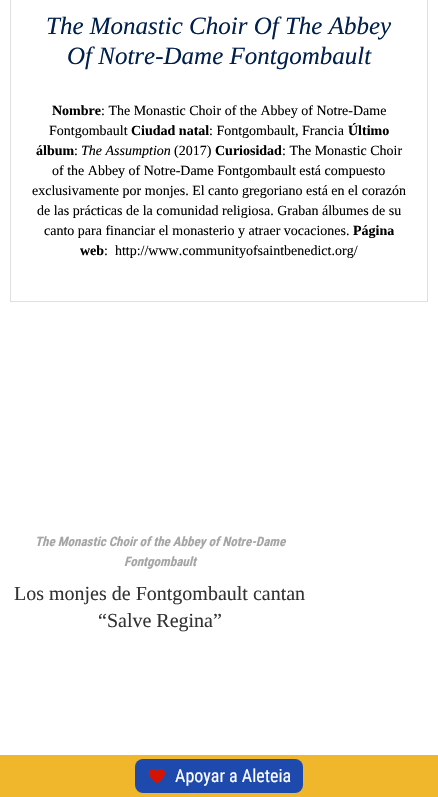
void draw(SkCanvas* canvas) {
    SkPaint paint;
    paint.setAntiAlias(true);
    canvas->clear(0xFFFFFFFF);
    paint.setStyle(SkPaint::kStroke_Style);
    paint.setStrokeWidth(1);
    paint.setColor(0xFFDFDFDF);
    canvas->drawRect(SkRect::MakeXYWH(10.5f, -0.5f, 417, 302), paint);
    SkFont font1(fontMgr->matchFamilyStyle("Liberation Serif", SkFontStyle::Italic()), 25);
    font1.setSubpixel(true);
    paint.setStyle(SkPaint::kFill_Style);
    paint.setColor(0xFF001F4D);
    canvas->drawString("The Monastic Choir Of The Abbey", 46, 34, font1, paint);
    canvas->drawString("Of Notre-Dame Fontgombault", 67, 64, font1, paint);
    SkFont font2(fontMgr->matchFamilyStyle("Liberation Serif", SkFontStyle::Bold()), 14);
    font2.setSubpixel(true);
    paint.setColor(0xFF000000);
    canvas->drawString("Nombre", 52, 115, font2, paint);
    SkFont font3(fontMgr->matchFamilyStyle("Liberation Serif", SkFontStyle::Normal()), 14);
    font3.setSubpixel(true);
    canvas->drawString(": The Monastic Choir of the Abbey of Notre-Dame", 101, 115, font3, paint);
    canvas->drawString("Fontgombault", 49, 135, font3, paint);
    canvas->drawString("Ciudad natal", 131, 135, font2, paint);
    canvas->drawString(": Fontgombault, Francia", 209, 135, font3, paint);
    canvas->drawString("Último", 348, 135, font2, paint);
    canvas->drawString("álbum", 36, 155, font2, paint);
    canvas->drawString(":", 74, 155, font3, paint);
    SkFont font4(fontMgr->matchFamilyStyle("Liberation Serif", SkFontStyle::Italic()), 14);
    font4.setSubpixel(true);
    canvas->drawString("The Assumption", 81, 155, font4, paint);
    canvas->drawString("(2017)", 174, 155, font3, paint);
    canvas->drawString("Curiosidad", 215, 155, font2, paint);
    canvas->drawString(": The Monastic Choir", 282, 155, font3, paint);
    canvas->drawString("of the Abbey of Notre-Dame Fontgombault está compuesto", 52, 175, font3, paint);
    canvas->drawString("exclusivamente por monjes. El canto gregoriano está en el corazón", 32, 195, font3, paint);
    canvas->drawString("de las prácticas de la comunidad religiosa. Graban álbumes de su", 37, 215, font3, paint);
    canvas->drawString("canto para financiar el monasterio y atraer vocaciones.", 44, 235, font3, paint);
    canvas->drawString("Página", 353, 235, font2, paint);
    canvas->drawString("web", 80, 255, font2, paint);
    canvas->drawString(":  http://www.communityofsaintbenedict.org/", 104, 255, font3, paint);
    SkFont font5(fontMgr->matchFamilyStyle("Roboto Condensed", SkFontStyle::BoldItalic()), 13);
    font5.setSubpixel(true);
    paint.setColor(0xFFA5A5A5);
    canvas->drawString("The Monastic Choir of the Abbey of Notre-Dame", 35, 546, font5, paint);
    canvas->drawString("Fontgombault", 124, 566, font5, paint);
    SkFont font6(fontMgr->matchFamilyStyle("Liberation Serif", SkFontStyle::Normal()), 20);
    font6.setSubpixel(true);
    paint.setColor(0xFF333333);
    canvas->drawString("Los monjes de Fontgombault cantan", 14, 600, font6, paint);
    canvas->drawString("“Salve Regina”", 98, 627, font6, paint);
    paint.setColor(0xFFF0B72C);
    canvas->drawRect(SkRect::MakeXYWH(0, 755, 438, 42), paint);
    paint.setColor(0xFF1F4AAD);
    canvas->drawRoundRect(SkRect::MakeXYWH(135, 759, 168, 34), 8, 8, paint);
    canvas->drawImageRect(SkImages::DeferredFromEncodedData(SkData::MakeFromFileName("img1.png")), SkRect::MakeXYWH(149, 769, 16, 14), SkSamplingOptions());
    SkFont font7(fontMgr->matchFamilyStyle("Roboto Condensed", SkFontStyle::Normal()), 18);
    font7.setSubpixel(true);
    paint.setColor(0xFFFFFFFF);
    canvas->drawString("Apoyar a Aleteia", 175, 782, font7, paint);
}
